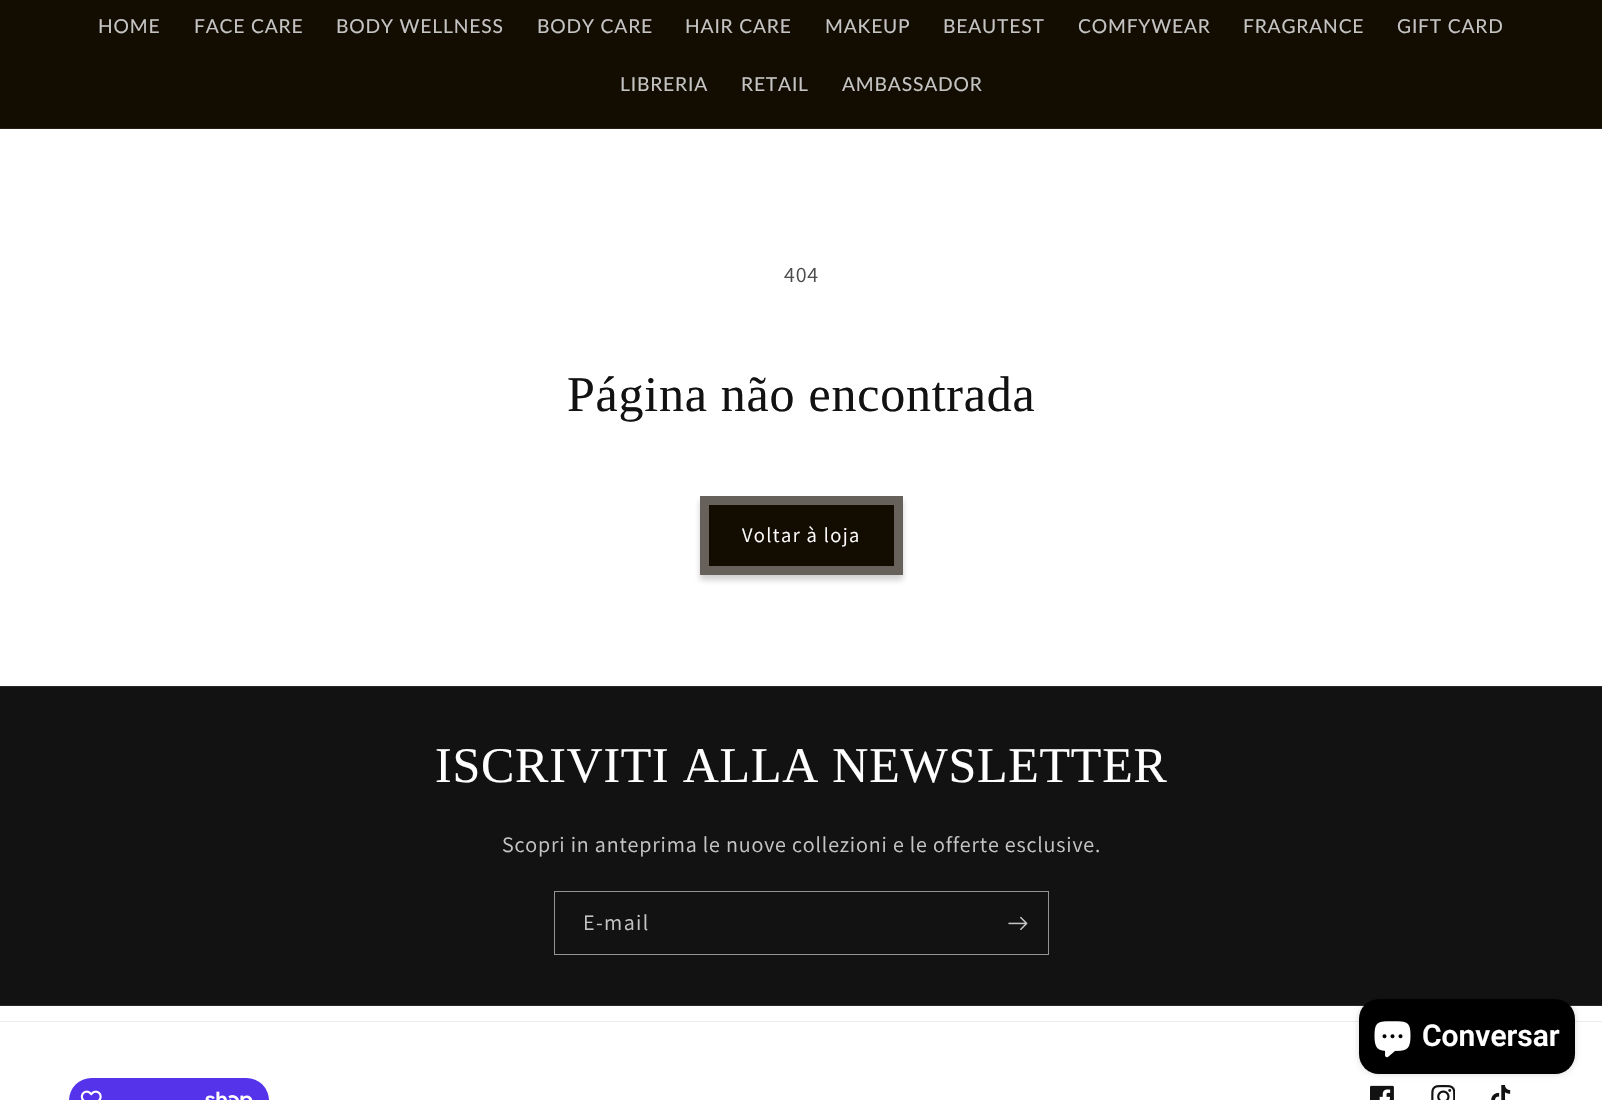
void draw(SkCanvas* canvas) {
    SkPaint paint;
    paint.setAntiAlias(true);
    auto spacedText = [&](const char* s, float x, float y, const SkFont& font, const SkPaint& ink, float letter, float word) {
        std::vector<SkGlyphID> glyphs(font.countText(s, strlen(s), SkTextEncoding::kUTF8));
        std::vector<float> xs(glyphs.size());
        font.textToGlyphs(s, strlen(s), SkTextEncoding::kUTF8, glyphs);
        font.getXPos(glyphs, xs, x);
        float extra = 0;
        for (size_t i = 0; i < glyphs.size(); i++) {
            xs[i] += extra;
            extra += letter + word * (glyphs[i] == font.unicharToGlyph(' '));
        }
        canvas->drawTextBlob(SkTextBlob::MakeFromPosHGlyphs(glyphs, xs, y, font), 0, 0, ink);
    };
    canvas->clear(0xFFFFFFFF);
    paint.setColor(0xFF130C01);
    canvas->drawRect(SkRect::MakeXYWH(0, 0, 1602, 128), paint);
    paint.setColor(0xFF261F15);
    canvas->drawRect(SkRect::MakeXYWH(0, 128, 1602, 1), paint);
    SkFont font1(fontMgr->matchFamilyStyle("Lato", SkFontStyle::Normal()), 19.25f);
    font1.setSubpixel(true);
    paint.setColor(0xFFC4C4C4);
    spacedText("HOME", 98, 33, font1, paint, 0.83f, 0);
    spacedText("FACE CARE", 194, 33, font1, paint, 0.83f, 0);
    spacedText("BODY WELLNESS", 336, 33, font1, paint, 0.83f, 0);
    spacedText("BODY CARE", 537, 33, font1, paint, 0.83f, 0);
    spacedText("HAIR CARE", 685, 33, font1, paint, 0.83f, 0);
    spacedText("MAKEUP", 825, 33, font1, paint, 0.83f, 0);
    spacedText("BEAUTEST", 943, 33, font1, paint, 0.83f, 0);
    spacedText("COMFYWEAR", 1078, 33, font1, paint, 0.83f, 0);
    spacedText("FRAGRANCE", 1243, 33, font1, paint, 0.83f, 0);
    spacedText("GIFT CARD", 1397, 33, font1, paint, 0.83f, 0);
    spacedText("LIBRERIA", 620, 91, font1, paint, 0.83f, 0);
    spacedText("RETAIL", 741, 91, font1, paint, 0.83f, 0);
    spacedText("AMBASSADOR", 842, 91, font1, paint, 0.83f, 0);
    SkFont font2(fontMgr->matchFamilyStyle("Assistant", SkFontStyle::Normal()), 22);
    font2.setSubpixel(true);
    paint.setColor(0xFF4D4D4D);
    spacedText("404", 784, 282, font2, paint, 0.83f, 0);
    SkFont font3(fontMgr->matchFamilyStyle("Liberation Serif", SkFontStyle::Normal()), 50);
    font3.setSubpixel(true);
    paint.setColor(0xFF121212);
    spacedText("Página não encontrada", 567, 411, font3, paint, 0.75f, 0);
    paint.setColor(0x33121212);
    paint.setMaskFilter(SkMaskFilter::MakeBlur(kNormal_SkBlurStyle, 3));
    canvas->drawRect(SkRect::MakeXYWH(700, 501, 203, 79), paint);
    paint.setMaskFilter(nullptr);
    paint.setColor(0xFF130C01);
    canvas->drawRect(SkRect::MakeXYWH(709, 505, 185, 61), paint);
    paint.setStyle(SkPaint::kStroke_Style);
    paint.setStrokeWidth(9);
    paint.setColor(0xFF66615A);
    canvas->drawRect(SkRect::MakeXYWH(704.5f, 500.5f, 194, 70), paint);
    SkFont font4(fontMgr->matchFamilyStyle("Assistant", SkFontStyle::Normal()), 20.5f);
    font4.setSubpixel(true);
    paint.setStyle(SkPaint::kFill_Style);
    paint.setColor(0xFFFFFFFF);
    spacedText("Voltar à loja", 742, 542, font4, paint, 1.4f, 0);
    paint.setColor(0xFF121212);
    canvas->drawRect(SkRect::MakeXYWH(0, 687, 1602, 318), paint);
    paint.setColor(0xFF2A2A2A);
    canvas->drawRect(SkRect::MakeXYWH(0, 686, 1602, 1), paint);
    canvas->drawRect(SkRect::MakeXYWH(0, 1005, 1602, 1), paint);
    paint.setColor(0xFFFFFFFF);
    spacedText("ISCRIVITI ALLA NEWSLETTER", 435, 782, font3, paint, 0.75f, 0);
    paint.setColor(0xFFC4C4C4);
    spacedText("Scopri in anteprima le nuove collezioni e le offerte esclusive.", 502, 852, font2, paint, 0.83f, 0);
    paint.setStyle(SkPaint::kStroke_Style);
    paint.setStrokeWidth(1);
    paint.setColor(0xFF949494);
    canvas->drawRect(SkRect::MakeXYWH(554.5f, 891.5f, 494, 63), paint);
    paint.setStyle(SkPaint::kFill_Style);
    paint.setColor(0xFFC4C4C4);
    spacedText("E-mail", 583, 930, font2, paint, 1.4f, 0);
    canvas->drawImageRect(SkImages::DeferredFromEncodedData(SkData::MakeFromFileName("img1.png")), SkRect::MakeXYWH(1008, 916, 20, 14), SkSamplingOptions());
    paint.setColor(0xFFECECEC);
    canvas->drawRect(SkRect::MakeXYWH(0, 1021, 1602, 1), paint);
    paint.setColor(0xFF5433EB);
    canvas->drawRoundRect(SkRect::MakeXYWH(69, 1078, 200, 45), 22.5f, 22.5f, paint);
    canvas->drawImageRect(SkImages::DeferredFromEncodedData(SkData::MakeFromFileName("img2.png")), SkRect::MakeXYWH(80, 1090, 22, 10), SkSamplingOptions());
    canvas->drawImageRect(SkImages::DeferredFromEncodedData(SkData::MakeFromFileName("img3.png")), SkRect::MakeXYWH(205, 1091, 48, 9), SkSamplingOptions());
    canvas->drawImageRect(SkImages::DeferredFromEncodedData(SkData::MakeFromFileName("img4.png")), SkRect::MakeXYWH(1370, 1085, 24, 15), SkSamplingOptions());
    canvas->drawImageRect(SkImages::DeferredFromEncodedData(SkData::MakeFromFileName("img5.png")), SkRect::MakeXYWH(1431, 1085, 24, 15), SkSamplingOptions());
    canvas->drawImageRect(SkImages::DeferredFromEncodedData(SkData::MakeFromFileName("img6.png")), SkRect::MakeXYWH(1491, 1085, 20, 15), SkSamplingOptions());
    paint.setColor(0x26000000);
    paint.setMaskFilter(SkMaskFilter::MakeBlur(kNormal_SkBlurStyle, 3));
    canvas->drawRoundRect(SkRect::MakeXYWH(1359, 999, 216, 75), 20, 20, paint);
    paint.setMaskFilter(nullptr);
    paint.setColor(0xFF000000);
    canvas->drawRoundRect(SkRect::MakeXYWH(1359, 999, 216, 75), 20, 20, paint);
    canvas->drawImageRect(SkImages::DeferredFromEncodedData(SkData::MakeFromFileName("img7.png")), SkRect::MakeXYWH(1374, 1021, 37, 37), SkSamplingOptions());
    SkFont font5(fontMgr->matchFamilyStyle("Roboto", SkFontStyle(600, SkFontStyle::kNormal_Width, SkFontStyle::kUpright_Slant)), 30);
    font5.setSubpixel(true);
    paint.setColor(0xFFFFFFFF);
    canvas->drawString("Conversar", 1422, 1046, font5, paint);
}
